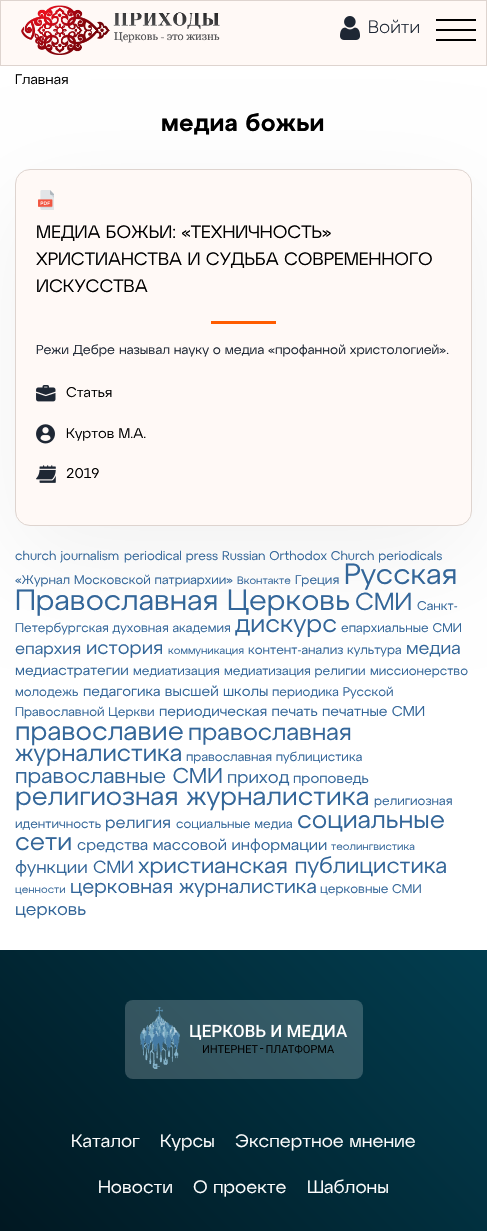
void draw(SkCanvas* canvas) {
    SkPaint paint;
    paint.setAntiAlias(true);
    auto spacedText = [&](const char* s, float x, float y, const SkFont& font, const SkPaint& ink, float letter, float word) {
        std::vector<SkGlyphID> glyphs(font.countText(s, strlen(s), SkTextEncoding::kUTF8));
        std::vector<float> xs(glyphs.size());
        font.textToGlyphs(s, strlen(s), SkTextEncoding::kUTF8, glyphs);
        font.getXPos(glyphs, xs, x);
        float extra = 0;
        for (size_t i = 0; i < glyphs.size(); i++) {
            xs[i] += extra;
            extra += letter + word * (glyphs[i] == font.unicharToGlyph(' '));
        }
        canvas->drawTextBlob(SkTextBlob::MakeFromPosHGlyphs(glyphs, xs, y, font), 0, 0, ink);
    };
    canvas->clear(0xFFFFFFFF);
    paint.setColor(0x0D000000);
    paint.setMaskFilter(SkMaskFilter::MakeBlur(kNormal_SkBlurStyle, 50));
    canvas->drawRoundRect(SkRect::MakeXYWH(15, 199, 457, 357), 15, 15, paint);
    paint.setMaskFilter(nullptr);
    paint.setColor(0xFFFFF9F6);
    canvas->drawRect(SkRect::MakeXYWH(0.5f, 0.5f, 486, 65), paint);
    paint.setStyle(SkPaint::kStroke_Style);
    paint.setStrokeWidth(1);
    paint.setColor(0xFFDED4CF);
    canvas->drawRect(SkRect::MakeXYWH(0.5f, 0.5f, 486, 65), paint);
    canvas->drawImageRect(SkImages::DeferredFromEncodedData(SkData::MakeFromFileName("img1.png")), SkRect::MakeXYWH(21, 5, 199, 50), SkSamplingOptions());
    canvas->drawImageRect(SkImages::DeferredFromEncodedData(SkData::MakeFromFileName("img2.png")), SkRect::MakeXYWH(340, 16, 20, 24), SkSamplingOptions());
    SkFont font1(fontMgr->matchFamilyStyle("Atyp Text", SkFontStyle(300, SkFontStyle::kNormal_Width, SkFontStyle::kUpright_Slant)), 18);
    font1.setSubpixel(true);
    paint.setStyle(SkPaint::kFill_Style);
    paint.setColor(0xFF1E2734);
    canvas->drawString("Войти", 368, 33, font1, paint);
    paint.setColor(0xFF000000);
    canvas->drawRect(SkRect::MakeXYWH(436, 19, 40, 2), paint);
    canvas->drawRect(SkRect::MakeXYWH(436, 29, 40, 2), paint);
    canvas->drawRect(SkRect::MakeXYWH(436, 39, 40, 2), paint);
    SkFont font2(fontMgr->matchFamilyStyle("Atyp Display", SkFontStyle::Normal()), 14);
    font2.setSubpixel(true);
    canvas->drawString("Главная", 15, 84, font2, paint);
    SkFont font3(fontMgr->matchFamilyStyle("Atyp Text", SkFontStyle(600, SkFontStyle::kNormal_Width, SkFontStyle::kUpright_Slant)), 24);
    font3.setSubpixel(true);
    spacedText("медиа божьи", 161, 131, font3, paint, 0.25f, 0);
    paint.setColor(0xFFFFF9F6);
    canvas->drawRoundRect(SkRect::MakeXYWH(15.5f, 169.5f, 456, 356), 14.5f, 14.5f, paint);
    paint.setStyle(SkPaint::kStroke_Style);
    paint.setColor(0xFFDED4CF);
    canvas->drawRoundRect(SkRect::MakeXYWH(15.5f, 169.5f, 456, 356), 14.5f, 14.5f, paint);
    canvas->drawImageRect(SkImages::DeferredFromEncodedData(SkData::MakeFromFileName("img3.png")), SkRect::MakeXYWH(38, 190, 16, 20), SkSamplingOptions());
    SkFont font4(fontMgr->matchFamilyStyle("Atyp Display", SkFontStyle::Normal()), 18);
    font4.setSubpixel(true);
    paint.setStyle(SkPaint::kFill_Style);
    paint.setColor(0xFF000000);
    canvas->drawString("МЕДИА БОЖЬИ: «ТЕХНИЧНОСТЬ»", 36, 238, font4, paint);
    canvas->drawString("ХРИСТИАНСТВА И СУДЬБА СОВРЕМЕННОГО", 36, 265, font4, paint);
    canvas->drawString("ИСКУССТВА", 36, 292, font4, paint);
    paint.setColor(0xFFFF5C00);
    canvas->drawRect(SkRect::MakeXYWH(211, 321, 65, 3), paint);
    SkFont font5(fontMgr->matchFamilyStyle("Atyp Display", SkFontStyle::Normal()), 13);
    font5.setSubpixel(true);
    paint.setColor(0xFF1E2734);
    canvas->drawString("Режи Дебре называл науку о медиа «профанной христологией».", 36, 354, font5, paint);
    canvas->drawImageRect(SkImages::DeferredFromEncodedData(SkData::MakeFromFileName("img4.png")), SkRect::MakeXYWH(36, 385, 20, 17), SkSamplingOptions());
    paint.setColor(0xFF000000);
    canvas->drawString("Статья", 66, 397, font2, paint);
    canvas->drawImageRect(SkImages::DeferredFromEncodedData(SkData::MakeFromFileName("img5.png")), SkRect::MakeXYWH(36, 424, 19, 20), SkSamplingOptions());
    canvas->drawString("Куртов М.А.", 66, 438, font2, paint);
    canvas->drawImageRect(SkImages::DeferredFromEncodedData(SkData::MakeFromFileName("img6.png")), SkRect::MakeXYWH(36, 465, 20, 18), SkSamplingOptions());
    canvas->drawString("2019", 66, 478, font2, paint);
    SkFont font6(fontMgr->matchFamilyStyle("Atyp Text", SkFontStyle::Normal()), 12.6f);
    font6.setSubpixel(true);
    paint.setColor(0xFF336699);
    canvas->drawString("church journalism", 15, 560, font6, paint);
    canvas->drawString("periodical press", 124, 560, font6, paint);
    canvas->drawString("Russian Orthodox Church periodicals", 222, 560, font6, paint);
    canvas->drawString("«Журнал Московской патриархии»", 15, 584, font6, paint);
    SkFont font7(fontMgr->matchFamilyStyle("Atyp Text", SkFontStyle::Normal()), 10.75f);
    font7.setSubpixel(true);
    canvas->drawString("Вконтакте", 237, 584, font7, paint);
    canvas->drawString("Греция", 295, 584, font6, paint);
    SkFont font8(fontMgr->matchFamilyStyle("Atyp Text", SkFontStyle::Normal()), 29.25f);
    font8.setSubpixel(true);
    canvas->drawString("Русская", 344, 584, font8, paint);
    canvas->drawString("Православная Церковь", 15, 610, font8, paint);
    SkFont font9(fontMgr->matchFamilyStyle("Atyp Text", SkFontStyle::Normal()), 24.5f);
    font9.setSubpixel(true);
    canvas->drawString("СМИ", 355, 610, font9, paint);
    canvas->drawString("Санкт-", 417, 610, font6, paint);
    canvas->drawString("Петербургская духовная академия", 15, 632, font6, paint);
    SkFont font10(fontMgr->matchFamilyStyle("Atyp Text", SkFontStyle::Normal()), 25);
    font10.setSubpixel(true);
    canvas->drawString("дискурс", 235, 632, font10, paint);
    canvas->drawString("епархиальные СМИ", 341, 632, font6, paint);
    SkFont font11(fontMgr->matchFamilyStyle("Atyp Text", SkFontStyle::Normal()), 16.5f);
    font11.setSubpixel(true);
    canvas->drawString("епархия", 15, 654, font11, paint);
    SkFont font12(fontMgr->matchFamilyStyle("Atyp Text", SkFontStyle::Normal()), 19);
    font12.setSubpixel(true);
    canvas->drawString("история", 86, 654, font12, paint);
    canvas->drawString("коммуникация", 168, 654, font7, paint);
    canvas->drawString("контент-анализ", 248, 654, font6, paint);
    canvas->drawString("культура", 347, 654, font6, paint);
    SkFont font13(fontMgr->matchFamilyStyle("Atyp Text", SkFontStyle::Normal()), 18);
    font13.setSubpixel(true);
    canvas->drawString("медиа", 406, 654, font13, paint);
    SkFont font14(fontMgr->matchFamilyStyle("Atyp Text", SkFontStyle::Normal()), 14.25f);
    font14.setSubpixel(true);
    canvas->drawString("медиастратегии", 15, 675, font14, paint);
    canvas->drawString("медиатизация", 133, 675, font6, paint);
    canvas->drawString("медиатизация религии", 224, 675, font6, paint);
    canvas->drawString("миссионерство", 370, 675, font6, paint);
    canvas->drawString("молодежь", 15, 696, font6, paint);
    canvas->drawString("педагогика высшей школы", 83, 696, font14, paint);
    canvas->drawString("периодика Русской", 272, 696, font6, paint);
    canvas->drawString("Православной Церкви", 15, 716, font6, paint);
    canvas->drawString("периодическая печать печатные СМИ", 159, 716, font14, paint);
    SkFont font15(fontMgr->matchFamilyStyle("Atyp Text", SkFontStyle::Normal()), 26.5f);
    font15.setSubpixel(true);
    canvas->drawString("православие", 15, 740, font15, paint);
    SkFont font16(fontMgr->matchFamilyStyle("Atyp Text", SkFontStyle::Normal()), 24);
    font16.setSubpixel(true);
    canvas->drawString("православная", 188, 740, font16, paint);
    canvas->drawString("журналистика", 15, 761, font16, paint);
    canvas->drawString("православная публицистика", 186, 761, font6, paint);
    SkFont font17(fontMgr->matchFamilyStyle("Atyp Text", SkFontStyle::Normal()), 21.5f);
    font17.setSubpixel(true);
    canvas->drawString("православные СМИ", 15, 783, font17, paint);
    SkFont font18(fontMgr->matchFamilyStyle("Atyp Text", SkFontStyle::Normal()), 17.5f);
    font18.setSubpixel(true);
    canvas->drawString("приход", 227, 783, font18, paint);
    canvas->drawString("проповедь", 293, 783, font14, paint);
    SkFont font19(fontMgr->matchFamilyStyle("Atyp Text", SkFontStyle::Normal()), 26.25f);
    font19.setSubpixel(true);
    canvas->drawString("религиозная журналистика", 15, 805, font19, paint);
    canvas->drawString("религиозная", 374, 805, font6, paint);
    canvas->drawString("идентичность", 15, 828, font6, paint);
    canvas->drawString("религия", 105, 828, font11, paint);
    canvas->drawString("социальные медиа", 176, 828, font6, paint);
    canvas->drawString("социальные", 297, 828, font10, paint);
    canvas->drawString("сети", 15, 850, font10, paint);
    SkFont font20(fontMgr->matchFamilyStyle("Atyp Text", SkFontStyle::Normal()), 15.5f);
    font20.setSubpixel(true);
    canvas->drawString("средства массовой информации", 77, 850, font20, paint);
    canvas->drawString("теолингвистика", 331, 850, font7, paint);
    canvas->drawString("функции СМИ", 15, 873, font18, paint);
    SkFont font21(fontMgr->matchFamilyStyle("Atyp Text", SkFontStyle::Normal()), 22.25f);
    font21.setSubpixel(true);
    canvas->drawString("христианская публицистика", 138, 873, font21, paint);
    canvas->drawString("ценности", 15, 893, font7, paint);
    SkFont font22(fontMgr->matchFamilyStyle("Atyp Text", SkFontStyle::Normal()), 19.75f);
    font22.setSubpixel(true);
    canvas->drawString("церковная журналистика", 70, 893, font22, paint);
    canvas->drawString("церковные СМИ", 320, 893, font6, paint);
    canvas->drawString("церковь", 15, 915, font18, paint);
    {
        const SkColor colors[] = {0xFF00070D, 0xFF023E50};
        const float stops[] = {0, 1};
        const SkPoint ends[] = {{-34, 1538}, {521, 984}};
        paint.setShader(SkGradientShader::MakeLinear(ends, colors, stops, 2, SkTileMode::kClamp));
        paint.setAlpha(255);
    }
    canvas->drawRect(SkRect::MakeXYWH(0, 950, 487, 281), paint);
    paint.setShader(nullptr);
    paint.setColor(0x33FFFFFF);
    canvas->drawRoundRect(SkRect::MakeXYWH(125, 1000, 238, 79), 8, 8, paint);
    canvas->drawImageRect(SkImages::DeferredFromEncodedData(SkData::MakeFromFileName("img7.png")), SkRect::MakeXYWH(140, 1007, 208, 62), SkSamplingOptions());
    paint.setColor(0xFFFFFFFF);
    canvas->drawString("Каталог", 71, 1147, font4, paint);
    canvas->drawString("Курсы", 160, 1147, font4, paint);
    canvas->drawString("Экспертное мнение", 235, 1147, font4, paint);
    canvas->drawString("Новости", 98, 1193, font4, paint);
    canvas->drawString("О проекте", 193, 1193, font4, paint);
    canvas->drawString("Шаблоны", 307, 1193, font4, paint);
}
